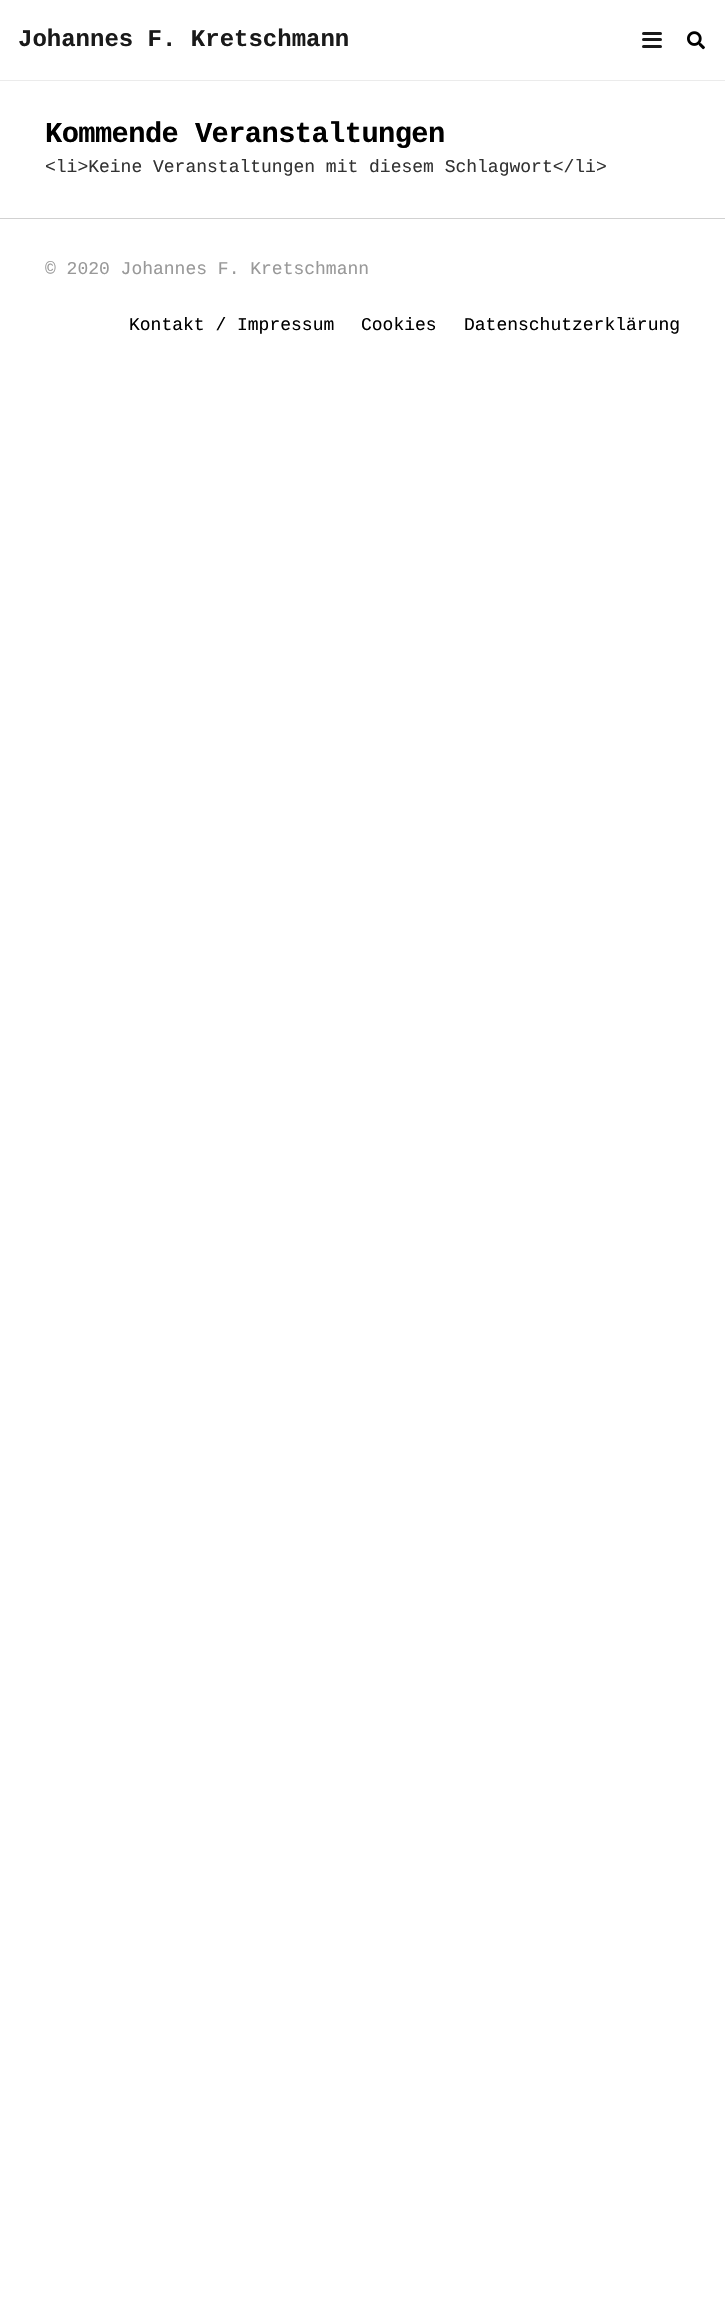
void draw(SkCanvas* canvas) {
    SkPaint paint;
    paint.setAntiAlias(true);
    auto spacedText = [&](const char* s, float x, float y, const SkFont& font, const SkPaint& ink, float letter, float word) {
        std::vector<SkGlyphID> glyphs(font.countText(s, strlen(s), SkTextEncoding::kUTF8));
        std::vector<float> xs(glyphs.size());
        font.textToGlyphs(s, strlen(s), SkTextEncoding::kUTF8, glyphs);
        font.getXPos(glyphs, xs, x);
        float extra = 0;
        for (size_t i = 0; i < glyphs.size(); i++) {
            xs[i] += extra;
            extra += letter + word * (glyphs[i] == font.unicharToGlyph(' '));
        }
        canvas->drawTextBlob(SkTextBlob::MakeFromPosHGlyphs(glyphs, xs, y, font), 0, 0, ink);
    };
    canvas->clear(0xFFFFFFFF);
    paint.setColor(0xFFEBEBEB);
    canvas->drawRect(SkRect::MakeXYWH(0, 80, 725, 1), paint);
    SkFont font1(fontMgr->matchFamilyStyle("Liberation Mono", SkFontStyle::Bold()), 24);
    font1.setSubpixel(true);
    paint.setColor(0xFF1A1A1A);
    canvas->drawString("Johannes F. Kretschmann", 18, 46, font1, paint);
    canvas->drawRoundRect(SkRect::MakeXYWH(642, 38, 20, 3), 1.5f, 1.5f, paint);
    canvas->drawRoundRect(SkRect::MakeXYWH(642, 32, 20, 3), 1.5f, 1.5f, paint);
    canvas->drawRoundRect(SkRect::MakeXYWH(642, 45, 20, 3), 1.5f, 1.5f, paint);
    canvas->drawImageRect(SkImages::DeferredFromEncodedData(SkData::MakeFromFileName("img1.png")), SkRect::MakeXYWH(687, 31, 18, 19), SkSamplingOptions());
    SkFont font2(fontMgr->matchFamilyStyle("Liberation Mono", SkFontStyle::Bold()), 28.75f);
    font2.setSubpixel(true);
    paint.setColor(0xFF000000);
    spacedText("Kommende Veranstaltungen", 45, 142, font2, paint, -0.6f, 0);
    SkFont font3(fontMgr->matchFamilyStyle("Liberation Mono", SkFontStyle::Normal()), 18);
    font3.setSubpixel(true);
    paint.setColor(0xFF333333);
    canvas->drawString("<li>Keine Veranstaltungen mit diesem Schlagwort</li>", 45, 172, font3, paint);
    paint.setColor(0xFFD1D1D1);
    canvas->drawRect(SkRect::MakeXYWH(0, 218, 725, 1), paint);
    paint.setColor(0xFF999999);
    canvas->drawString("© 2020 Johannes F. Kretschmann", 45, 274, font3, paint);
    paint.setColor(0xFF000000);
    canvas->drawString("Kontakt / Impressum", 129, 330, font3, paint);
    canvas->drawString("Cookies", 361, 330, font3, paint);
    canvas->drawString("Datenschutzerklärung", 464, 330, font3, paint);
}
